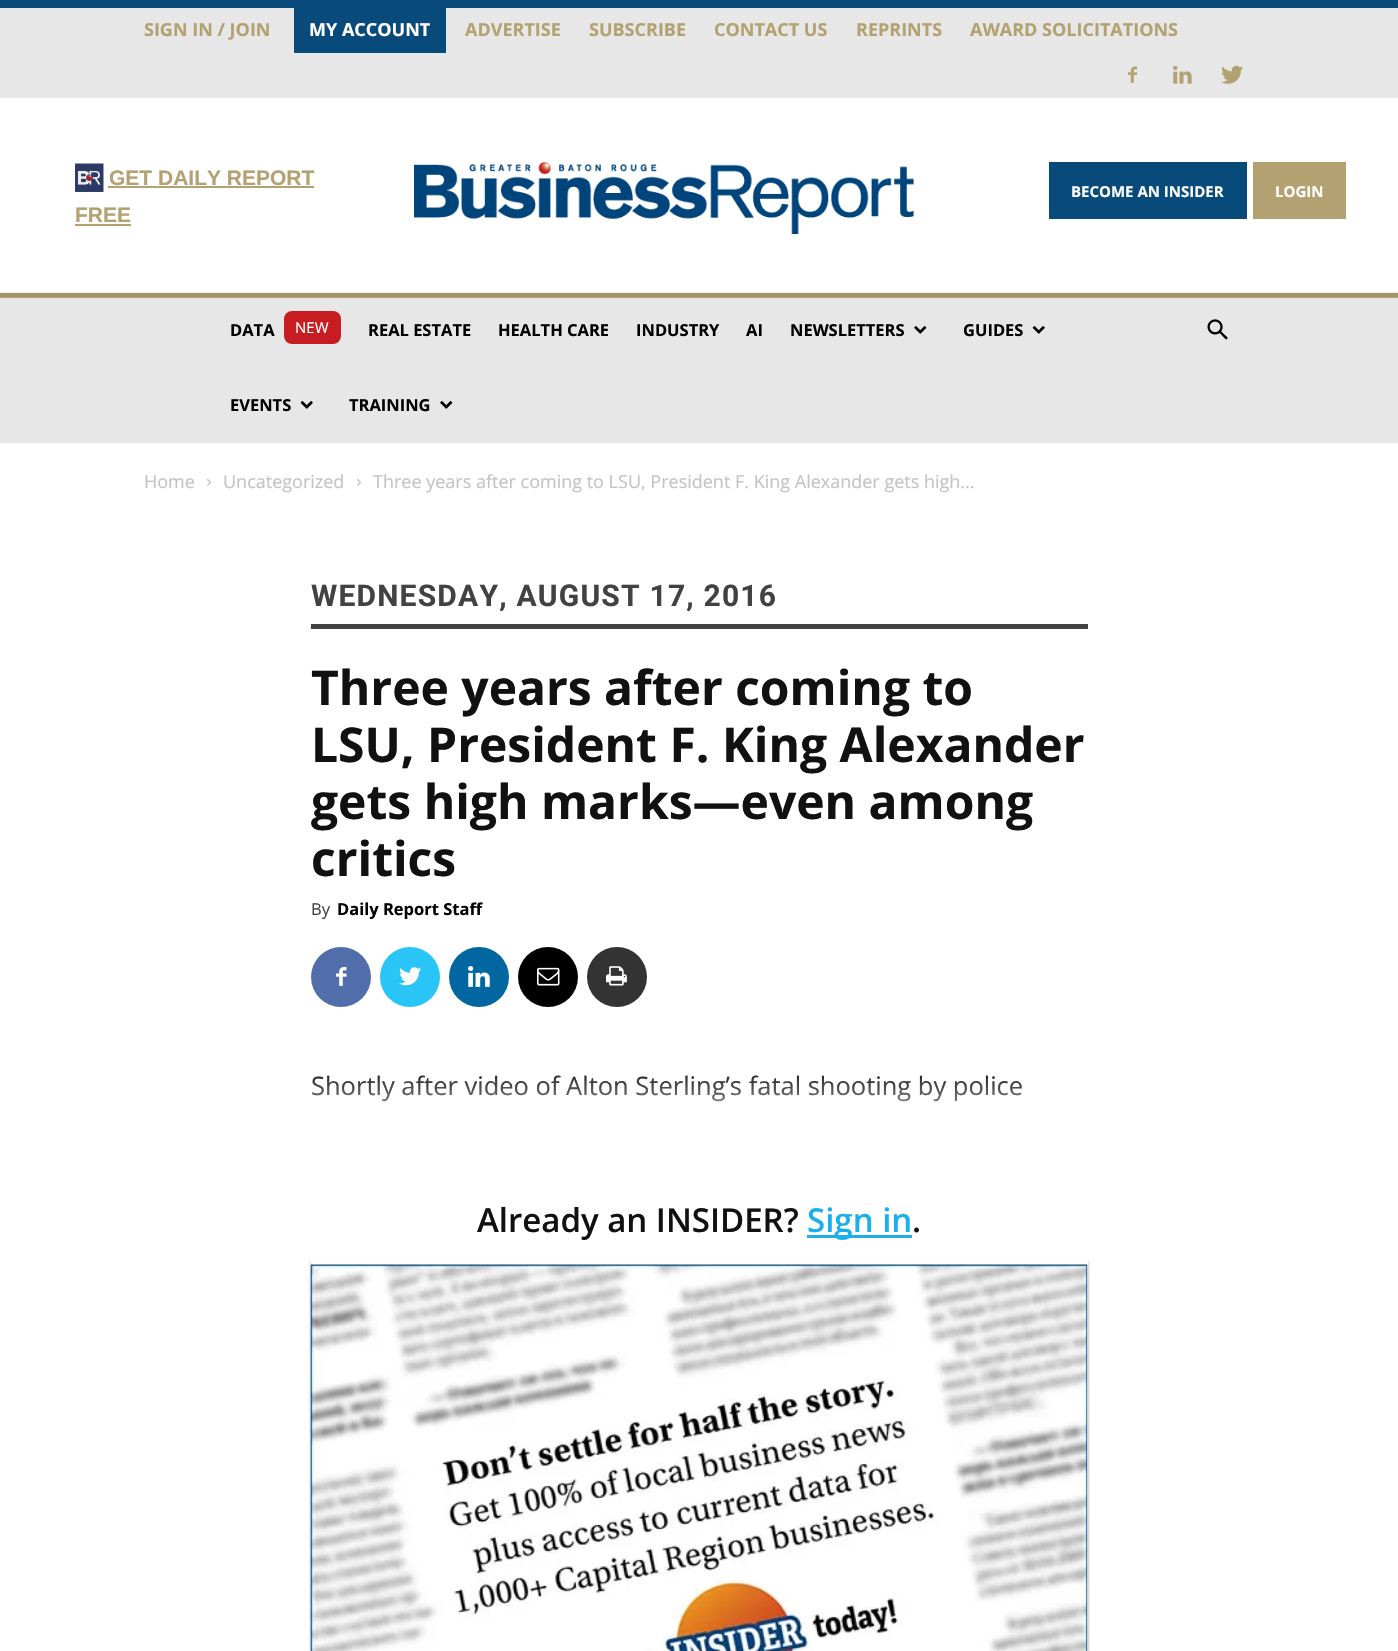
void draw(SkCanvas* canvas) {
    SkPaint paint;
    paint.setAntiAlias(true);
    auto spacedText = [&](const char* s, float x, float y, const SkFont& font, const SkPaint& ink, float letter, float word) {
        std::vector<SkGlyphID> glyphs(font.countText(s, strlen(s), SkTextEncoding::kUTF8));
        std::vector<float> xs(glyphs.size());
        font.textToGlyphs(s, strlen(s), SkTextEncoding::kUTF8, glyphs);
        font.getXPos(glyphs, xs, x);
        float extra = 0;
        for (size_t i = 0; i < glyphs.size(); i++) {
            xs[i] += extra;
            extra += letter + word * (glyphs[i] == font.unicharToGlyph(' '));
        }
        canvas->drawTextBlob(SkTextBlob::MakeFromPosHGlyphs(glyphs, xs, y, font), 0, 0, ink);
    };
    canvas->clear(0xFFFFFFFF);
    paint.setColor(0xFF084A7A);
    canvas->drawRect(SkRect::MakeXYWH(0, 0, 1398, 8), paint);
    paint.setColor(0xFFE7E7E7);
    canvas->drawRect(SkRect::MakeXYWH(0, 8, 1398, 90), paint);
    SkFont font1(fontMgr->matchFamilyStyle("Open Sans", SkFontStyle::Bold()), 18);
    font1.setSubpixel(true);
    paint.setColor(0xFFB3A172);
    canvas->drawString("SIGN IN / JOIN", 144, 36, font1, paint);
    paint.setColor(0xFF084A7A);
    canvas->drawRect(SkRect::MakeXYWH(294, 8, 152, 45), paint);
    paint.setColor(0xFFFFFFFF);
    canvas->drawString("MY ACCOUNT", 309, 36, font1, paint);
    paint.setColor(0xFFB3A172);
    canvas->drawString("ADVERTISE", 465, 36, font1, paint);
    canvas->drawString("SUBSCRIBE", 589, 36, font1, paint);
    canvas->drawString("CONTACT US", 714, 36, font1, paint);
    canvas->drawString("REPRINTS", 856, 36, font1, paint);
    canvas->drawString("AWARD SOLICITATIONS", 970, 36, font1, paint);
    canvas->drawImageRect(SkImages::DeferredFromEncodedData(SkData::MakeFromFileName("img1.png")), SkRect::MakeXYWH(1128, 66, 9, 17), SkSamplingOptions());
    canvas->drawImageRect(SkImages::DeferredFromEncodedData(SkData::MakeFromFileName("img2.png")), SkRect::MakeXYWH(1173, 65, 19, 19), SkSamplingOptions());
    canvas->drawImageRect(SkImages::DeferredFromEncodedData(SkData::MakeFromFileName("img3.png")), SkRect::MakeXYWH(1221, 65, 22, 19), SkSamplingOptions());
    paint.setColor(0xFFEBEBEB);
    canvas->drawRect(SkRect::MakeXYWH(0, 292, 1398, 1), paint);
    canvas->drawImageRect(SkImages::DeferredFromEncodedData(SkData::MakeFromFileName("img4.png")), SkRect::MakeXYWH(75, 163, 29, 29), SkSamplingOptions());
    SkFont font2(fontMgr->matchFamilyStyle("Liberation Sans", SkFontStyle::Bold()), 21);
    font2.setSubpixel(true);
    paint.setColor(0xFFB3A172);
    canvas->drawString("GET DAILY REPORT", 109, 185, font2, paint);
    canvas->drawRect(SkRect::MakeXYWH(108, 186, 206, 2), paint);
    canvas->drawString("FREE", 75, 222, font2, paint);
    canvas->drawRect(SkRect::MakeXYWH(75, 224, 56, 2), paint);
    canvas->drawImageRect(SkImages::DeferredFromEncodedData(SkData::MakeFromFileName("img5.png")), SkRect::MakeXYWH(414, 162, 500, 72), SkSamplingOptions());
    paint.setColor(0xFF084A7A);
    canvas->drawRect(SkRect::MakeXYWH(1049, 162, 198, 57), paint);
    SkFont font3(fontMgr->matchFamilyStyle("Open Sans", SkFontStyle::Bold()), 15);
    font3.setSubpixel(true);
    paint.setColor(0xFFFFFFFF);
    canvas->drawString("BECOME AN INSIDER", 1071, 197, font3, paint);
    paint.setColor(0xFFB3A172);
    canvas->drawRect(SkRect::MakeXYWH(1253, 162, 93, 57), paint);
    paint.setColor(0xFFFFFFFF);
    canvas->drawString("LOGIN", 1275, 197, font3, paint);
    paint.setColor(0xFFE7E7E7);
    canvas->drawRect(SkRect::MakeXYWH(0, 298, 1398, 145), paint);
    paint.setColor(0xFFB3A172);
    canvas->drawRect(SkRect::MakeXYWH(0, 297, 1398, 1), paint);
    paint.setColor(0xFFA59469);
    canvas->drawRect(SkRect::MakeXYWH(0, 293, 1398, 4), paint);
    SkFont font4(fontMgr->matchFamilyStyle("Open Sans", SkFontStyle::Bold()), 16.5f);
    font4.setSubpixel(true);
    paint.setColor(0xFF000000);
    canvas->drawString("DATA", 230, 336, font4, paint);
    paint.setColor(0xFFC71D22);
    canvas->drawRoundRect(SkRect::MakeXYWH(284, 311, 57, 33), 8, 8, paint);
    SkFont font5(fontMgr->matchFamilyStyle("Open Sans", SkFontStyle::Normal()), 15);
    font5.setSubpixel(true);
    paint.setColor(0xFFFFFFFF);
    canvas->drawString("NEW", 295, 333, font5, paint);
    paint.setColor(0xFF000000);
    canvas->drawString("REAL ESTATE", 368, 336, font4, paint);
    canvas->drawString("HEALTH CARE", 498, 336, font4, paint);
    canvas->drawString("INDUSTRY", 636, 336, font4, paint);
    canvas->drawString("AI", 746, 336, font4, paint);
    canvas->drawString("NEWSLETTERS", 790, 336, font4, paint);
    canvas->drawImageRect(SkImages::DeferredFromEncodedData(SkData::MakeFromFileName("img6.png")), SkRect::MakeXYWH(914, 326, 13, 8), SkSamplingOptions());
    canvas->drawString("GUIDES", 963, 336, font4, paint);
    canvas->drawImageRect(SkImages::DeferredFromEncodedData(SkData::MakeFromFileName("img7.png")), SkRect::MakeXYWH(1032, 326, 13, 8), SkSamplingOptions());
    canvas->drawString("EVENTS", 230, 411, font4, paint);
    canvas->drawImageRect(SkImages::DeferredFromEncodedData(SkData::MakeFromFileName("img7.png")), SkRect::MakeXYWH(300, 401, 13, 8), SkSamplingOptions());
    canvas->drawString("TRAINING", 349, 411, font4, paint);
    canvas->drawImageRect(SkImages::DeferredFromEncodedData(SkData::MakeFromFileName("img6.png")), SkRect::MakeXYWH(440, 401, 13, 8), SkSamplingOptions());
    canvas->drawImageRect(SkImages::DeferredFromEncodedData(SkData::MakeFromFileName("img8.png")), SkRect::MakeXYWH(1207, 319, 21, 21), SkSamplingOptions());
    SkFont font6(fontMgr->matchFamilyStyle("Open Sans", SkFontStyle::Normal()), 18);
    font6.setSubpixel(true);
    paint.setColor(0xFFC3C3C3);
    canvas->drawString("Home", 144, 488, font6, paint);
    canvas->drawImageRect(SkImages::DeferredFromEncodedData(SkData::MakeFromFileName("img9.png")), SkRect::MakeXYWH(207, 479, 4, 7), SkSamplingOptions());
    canvas->drawString("Uncategorized", 223, 488, font6, paint);
    canvas->drawImageRect(SkImages::DeferredFromEncodedData(SkData::MakeFromFileName("img9.png")), SkRect::MakeXYWH(357, 479, 4, 7), SkSamplingOptions());
    canvas->drawString("Three years after coming to LSU, President F. King Alexander gets high...", 373, 488, font6, paint);
    paint.setColor(0xFF424242);
    canvas->drawRect(SkRect::MakeXYWH(311, 624, 777, 5), paint);
    SkFont font7(fontMgr->matchFamilyStyle("Roboto", SkFontStyle::Bold()), 30);
    font7.setSubpixel(true);
    spacedText("WEDNESDAY, AUGUST 17, 2016", 311, 606, font7, paint, 1.2f, 0);
    SkFont font8(fontMgr->matchFamilyStyle("Open Sans", SkFontStyle::Bold()), 48);
    font8.setSubpixel(true);
    paint.setColor(0xFF111111);
    canvas->drawString("Three years after coming to", 311, 705, font8, paint);
    canvas->drawString("LSU, President F. King Alexander", 311, 762, font8, paint);
    canvas->drawString("gets high marks—even among", 311, 819, font8, paint);
    canvas->drawString("critics", 311, 876, font8, paint);
    SkFont font9(fontMgr->matchFamilyStyle("Open Sans", SkFontStyle::Normal()), 16.5f);
    font9.setSubpixel(true);
    paint.setColor(0xFF424242);
    canvas->drawString("By", 311, 915, font9, paint);
    paint.setColor(0xFF000000);
    canvas->drawString("Daily Report Staff", 337, 915, font4, paint);
    paint.setColor(0xFF516EAB);
    canvas->drawCircle(341, 977, 30, paint);
    canvas->drawImageRect(SkImages::DeferredFromEncodedData(SkData::MakeFromFileName("img10.png")), SkRect::MakeXYWH(336, 967, 11, 19), SkSamplingOptions());
    paint.setColor(0xFF29C5F6);
    canvas->drawCircle(410, 977, 30, paint);
    canvas->drawImageRect(SkImages::DeferredFromEncodedData(SkData::MakeFromFileName("img11.png")), SkRect::MakeXYWH(399, 967, 22, 19), SkSamplingOptions());
    paint.setColor(0xFF0266A0);
    canvas->drawCircle(479, 977, 30, paint);
    canvas->drawImageRect(SkImages::DeferredFromEncodedData(SkData::MakeFromFileName("img12.png")), SkRect::MakeXYWH(468, 966, 22, 21), SkSamplingOptions());
    paint.setColor(0xFF000000);
    canvas->drawCircle(548, 977, 30, paint);
    canvas->drawImageRect(SkImages::DeferredFromEncodedData(SkData::MakeFromFileName("img13.png")), SkRect::MakeXYWH(537, 967, 23, 19), SkSamplingOptions());
    paint.setColor(0xFF333333);
    canvas->drawCircle(617, 977, 30, paint);
    canvas->drawImageRect(SkImages::DeferredFromEncodedData(SkData::MakeFromFileName("img14.png")), SkRect::MakeXYWH(606, 966, 21, 20), SkSamplingOptions());
    SkFont font10(fontMgr->matchFamilyStyle("Open Sans", SkFontStyle::Normal()), 25.5f);
    font10.setSubpixel(true);
    paint.setColor(0xFF222222);
    canvas->drawString("Shortly after video of Alton Sterling’s fatal shooting by police", 311, 1095, font10, paint);
    {
        const SkColor colors[] = {0x00FFFFFF, 0xFFFFFFFF};
        const float stops[] = {0, 1};
        const SkPoint ends[] = {{699, 1073}, {699, 1148}};
        paint.setShader(SkGradientShader::MakeLinear(ends, colors, stops, 2, SkTileMode::kClamp));
        paint.setAlpha(255);
    }
    canvas->drawRect(SkRect::MakeXYWH(311, 1075, 711, 27), paint);
    SkFont font11(fontMgr->matchFamilyStyle("Open Sans", SkFontStyle(600, SkFontStyle::kNormal_Width, SkFontStyle::kUpright_Slant)), 33);
    font11.setSubpixel(true);
    paint.setShader(nullptr);
    paint.setColor(0xFF111111);
    canvas->drawString("Already an INSIDER?", 477, 1232, font11, paint);
    paint.setColor(0xFF1DAFEC);
    canvas->drawRect(SkRect::MakeXYWH(807, 1235, 105, 3), paint);
    canvas->drawString("Sign in", 807, 1232, font11, paint);
    paint.setColor(0xFF111111);
    canvas->drawString(".", 912, 1232, font11, paint);
    canvas->save();
    canvas->clipPath(SkPathBuilder(SkPathFillType::kEvenOdd).moveTo(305, 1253).lineTo(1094, 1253).lineTo(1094, 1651).lineTo(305, 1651).close().moveTo(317, 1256).lineTo(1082, 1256).cubicTo(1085.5f, 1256, 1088, 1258.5f, 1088, 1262).lineTo(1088, 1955).cubicTo(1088, 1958.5f, 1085.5f, 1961, 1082, 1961).lineTo(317, 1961).cubicTo(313.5f, 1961, 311, 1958.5f, 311, 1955).lineTo(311, 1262).cubicTo(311, 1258.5f, 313.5f, 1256, 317, 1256).close().detach(), true);
    paint.setColor(0xFF999999);
    paint.setMaskFilter(SkMaskFilter::MakeBlur(kNormal_SkBlurStyle, 1.5f));
    canvas->drawRoundRect(SkRect::MakeXYWH(311, 1259, 777, 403), 6, 6, paint);
    paint.setMaskFilter(nullptr);
    canvas->restore();
    canvas->drawImageRect(SkImages::DeferredFromEncodedData(SkData::MakeFromFileName("img15.png")), SkRect::MakeXYWH(310, 1264, 778, 387), SkSamplingOptions());
}
